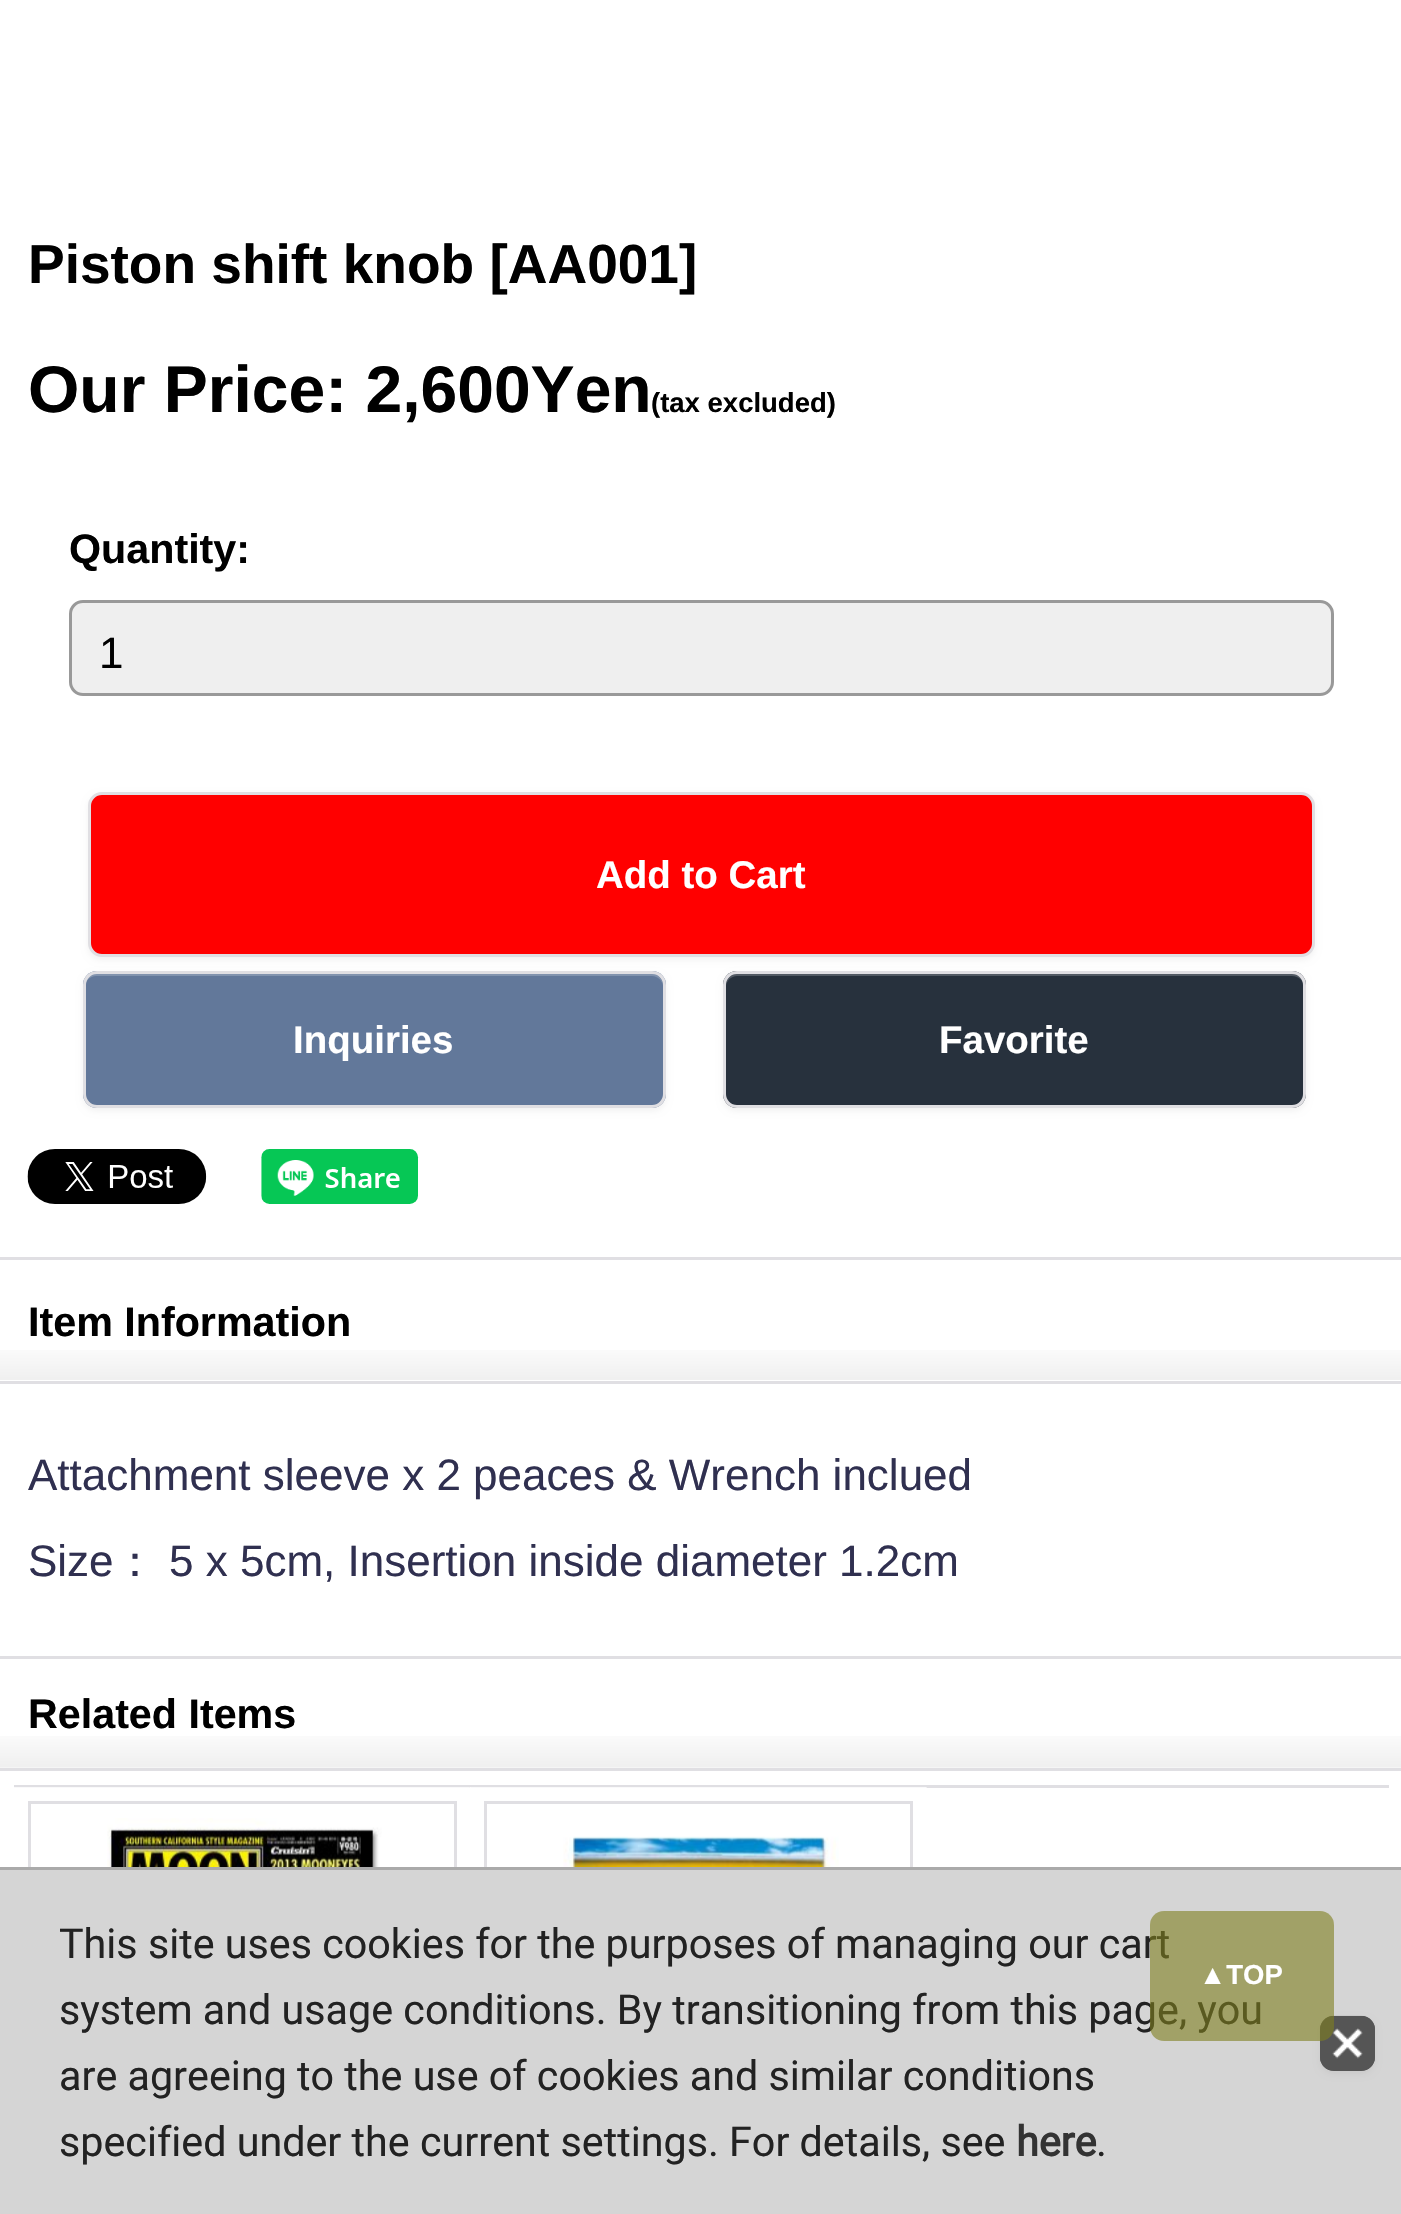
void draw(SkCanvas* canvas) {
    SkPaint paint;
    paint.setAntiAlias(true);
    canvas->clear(0xFFFFFFFF);
    SkFont font1(fontMgr->matchFamilyStyle("Liberation Sans", SkFontStyle::Bold()), 55);
    font1.setSubpixel(true);
    paint.setColor(0xFF000000);
    canvas->drawString("Piston shift knob [AA001]", 28, 283, font1, paint);
    SkFont font2(fontMgr->matchFamilyStyle("Liberation Sans", SkFontStyle::Bold()), 66);
    font2.setSubpixel(true);
    canvas->drawString("Our Price: 2,600Yen", 28, 412, font2, paint);
    SkFont font3(fontMgr->matchFamilyStyle("Liberation Sans", SkFontStyle::Bold()), 27.5f);
    font3.setSubpixel(true);
    canvas->drawString("(tax excluded)", 651, 412, font3, paint);
    SkFont font4(fontMgr->matchFamilyStyle("Liberation Sans", SkFontStyle::Bold()), 41.25f);
    font4.setSubpixel(true);
    canvas->drawString("Quantity:", 69, 563, font4, paint);
    paint.setColor(0xFFEFEFEF);
    canvas->drawRoundRect(SkRect::MakeXYWH(70.5f, 601.5f, 1262, 93), 12.5f, 12.5f, paint);
    paint.setStyle(SkPaint::kStroke_Style);
    paint.setStrokeWidth(3);
    paint.setColor(0xFF999999);
    canvas->drawRoundRect(SkRect::MakeXYWH(70.5f, 601.5f, 1262, 93), 12.5f, 12.5f, paint);
    SkFont font5(fontMgr->matchFamilyStyle("Liberation Sans", SkFontStyle::Normal()), 44);
    font5.setSubpixel(true);
    paint.setStyle(SkPaint::kFill_Style);
    paint.setColor(0xFF000000);
    canvas->drawString("1", 99, 668, font5, paint);
    paint.setColor(0x0D000000);
    paint.setMaskFilter(SkMaskFilter::MakeBlur(kNormal_SkBlurStyle, 3));
    canvas->drawRoundRect(SkRect::MakeXYWH(88, 795, 1227, 165), 14, 14, paint);
    paint.setMaskFilter(nullptr);
    paint.setColor(0xFFFF0000);
    canvas->drawRoundRect(SkRect::MakeXYWH(89.5f, 793.5f, 1224, 162), 12.5f, 12.5f, paint);
    paint.setStyle(SkPaint::kStroke_Style);
    paint.setColor(0xFFE0DFE3);
    canvas->drawRoundRect(SkRect::MakeXYWH(89.5f, 793.5f, 1224, 162), 12.5f, 12.5f, paint);
    SkFont font6(fontMgr->matchFamilyStyle("Liberation Sans", SkFontStyle::Bold()), 38.5f);
    font6.setSubpixel(true);
    paint.setStyle(SkPaint::kFill_Style);
    paint.setColor(0xFFFFFFFF);
    canvas->drawString("Add to Cart", 596, 888, font6, paint);
    paint.setColor(0x0D000000);
    paint.setMaskFilter(SkMaskFilter::MakeBlur(kNormal_SkBlurStyle, 3));
    canvas->drawRoundRect(SkRect::MakeXYWH(83, 974, 583, 137), 14, 14, paint);
    paint.setMaskFilter(nullptr);
    paint.setColor(0xFF62789A);
    canvas->drawRoundRect(SkRect::MakeXYWH(83, 971, 583, 137), 14, 14, paint);
    paint.setColor(0xFF8193AE);
    canvas->drawPath(SkPathBuilder().moveTo(96, 976).lineTo(652, 976).cubicTo(658, 976, 663, 981, 663, 987).cubicTo(663, 980, 659, 974, 652, 974).lineTo(96, 974).cubicTo(89, 974, 85, 980, 85, 987).cubicTo(85, 981, 90, 976, 96, 976).close().detach(), paint);
    paint.setStyle(SkPaint::kStroke_Style);
    paint.setColor(0xFFE0DFE3);
    canvas->drawRoundRect(SkRect::MakeXYWH(84.5f, 972.5f, 580, 134), 12.5f, 12.5f, paint);
    paint.setStyle(SkPaint::kFill_Style);
    paint.setColor(0xFFFFFFFF);
    canvas->drawString("Inquiries", 293, 1053, font6, paint);
    paint.setColor(0x0D000000);
    paint.setMaskFilter(SkMaskFilter::MakeBlur(kNormal_SkBlurStyle, 3));
    canvas->drawRoundRect(SkRect::MakeXYWH(723, 974, 583, 137), 14, 14, paint);
    paint.setMaskFilter(nullptr);
    paint.setColor(0xFF27313D);
    canvas->drawRoundRect(SkRect::MakeXYWH(723, 971, 583, 137), 14, 14, paint);
    paint.setColor(0xFF525A64);
    canvas->drawPath(SkPathBuilder().moveTo(737, 976).lineTo(1292, 976).cubicTo(1299, 976, 1304, 981, 1304, 987).cubicTo(1304, 980, 1300, 974, 1293, 974).lineTo(737, 974).cubicTo(730, 974, 726, 980, 726, 987).cubicTo(726, 981, 731, 976, 737, 976).close().detach(), paint);
    paint.setStyle(SkPaint::kStroke_Style);
    paint.setColor(0xFFE0DFE3);
    canvas->drawRoundRect(SkRect::MakeXYWH(724.5f, 972.5f, 580, 134), 12.5f, 12.5f, paint);
    paint.setStyle(SkPaint::kFill_Style);
    paint.setColor(0xFFFFFFFF);
    canvas->drawString("Favorite", 939, 1053, font6, paint);
    canvas->drawImageRect(SkImages::DeferredFromEncodedData(SkData::MakeFromFileName("img1.png")), SkRect::MakeXYWH(27, 1149, 180, 55), SkSamplingOptions());
    canvas->drawImageRect(SkImages::DeferredFromEncodedData(SkData::MakeFromFileName("img2.png")), SkRect::MakeXYWH(261, 1149, 158, 55), SkSamplingOptions());
    canvas->drawImageRect(SkImages::DeferredFromEncodedData(SkData::MakeFromFileName("img3.png")), SkRect::MakeXYWH(0, 1350, 1401, 30), SkSamplingOptions());
    paint.setColor(0xFFE0DFE3);
    canvas->drawRect(SkRect::MakeXYWH(0, 1257, 1401, 3), paint);
    canvas->drawRect(SkRect::MakeXYWH(0, 1381, 1401, 3), paint);
    paint.setColor(0xFF000000);
    canvas->drawString("Item Information", 28, 1336, font4, paint);
    paint.setColor(0xFF303050);
    canvas->drawString("Attachment sleeve x 2 peaces & Wrench inclued", 28, 1490, font5, paint);
    canvas->drawString("Size", 28, 1576, font5, paint);
    SkFont font7(fontMgr->matchFamilyStyle("WenQuanYi Zen Hei", SkFontStyle(500, SkFontStyle::kNormal_Width, SkFontStyle::kUpright_Slant)), 44);
    font7.setSubpixel(true);
    canvas->drawString("：", 113, 1576, font7, paint);
    canvas->drawString("5 x 5cm, Insertion inside diameter 1.2cm", 169, 1576, font5, paint);
    canvas->drawImageRect(SkImages::DeferredFromEncodedData(SkData::MakeFromFileName("img4.png")), SkRect::MakeXYWH(0, 1736, 1401, 32), SkSamplingOptions());
    paint.setColor(0xFFE0DFE3);
    canvas->drawRect(SkRect::MakeXYWH(0, 1656, 1401, 3), paint);
    canvas->drawRect(SkRect::MakeXYWH(0, 1768, 1401, 3), paint);
    paint.setColor(0xFF000000);
    canvas->drawString("Related Items", 28, 1728, font4, paint);
    paint.setColor(0xFFE0DFE3);
    canvas->drawRect(SkRect::MakeXYWH(14, 1785, 1375, 3), paint);
    canvas->drawImageRect(SkImages::DeferredFromEncodedData(SkData::MakeFromFileName("img5.png")), SkRect::MakeXYWH(14, 1787, 457, 1), SkSamplingOptions());
    paint.setStyle(SkPaint::kStroke_Style);
    canvas->drawRect(SkRect::MakeXYWH(29.5f, 1802.5f, 426, 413), paint);
    canvas->drawImageRect(SkImages::DeferredFromEncodedData(SkData::MakeFromFileName("img6.png")), SkRect::MakeXYWH(107, 1818, 275, 49), SkSamplingOptions());
    canvas->drawImageRect(SkImages::DeferredFromEncodedData(SkData::MakeFromFileName("img7.png")), SkRect::MakeXYWH(470, 1787, 457, 1), SkSamplingOptions());
    canvas->drawRect(SkRect::MakeXYWH(485.5f, 1802.5f, 426, 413), paint);
    canvas->drawImageRect(SkImages::DeferredFromEncodedData(SkData::MakeFromFileName("img8.png")), SkRect::MakeXYWH(563, 1836, 276, 31), SkSamplingOptions());
    paint.setStyle(SkPaint::kFill_Style);
    paint.setColor(0xFFD5D5D5);
    canvas->drawRect(SkRect::MakeXYWH(0, 1870, 1401, 344), paint);
    SkFont font8(fontMgr->matchFamilyStyle("Roboto", SkFontStyle::Normal()), 41.25f);
    font8.setSubpixel(true);
    paint.setColor(0xFF222222);
    canvas->drawString("This site uses cookies for the purposes of managing our cart", 59, 1958, font8, paint);
    canvas->drawString("system and usage conditions. By transitioning from this page, you", 59, 2024, font8, paint);
    paint.setColor(0x0D000000);
    paint.setMaskFilter(SkMaskFilter::MakeBlur(kNormal_SkBlurStyle, 3));
    canvas->drawRoundRect(SkRect::MakeXYWH(1320, 2019, 55, 55), 14, 14, paint);
    paint.setMaskFilter(nullptr);
    paint.setColor(0xFF555555);
    canvas->drawRoundRect(SkRect::MakeXYWH(1320, 2016, 55, 55), 14, 14, paint);
    canvas->drawImageRect(SkImages::DeferredFromEncodedData(SkData::MakeFromFileName("img9.png")), SkRect::MakeXYWH(1320, 2015, 55, 56), SkSamplingOptions());
    paint.setColor(0x997E7F1E);
    canvas->drawRoundRect(SkRect::MakeXYWH(1150, 1911, 184, 130), 14, 14, paint);
    paint.setColor(0xFFFFFFFF);
    canvas->drawString("▲TOP", 1199, 1984, font3, paint);
    paint.setColor(0xFFAAAAAA);
    canvas->drawRect(SkRect::MakeXYWH(0, 1867, 1401, 3), paint);
    paint.setColor(0xFF222222);
    canvas->drawString("are agreeing to the use of cookies and similar conditions", 59, 2090, font8, paint);
    canvas->drawString("specified under the current settings. For details, see", 59, 2156, font8, paint);
    SkFont font9(fontMgr->matchFamilyStyle("Roboto", SkFontStyle::Bold()), 41.25f);
    font9.setSubpixel(true);
    paint.setColor(0xFF333333);
    canvas->drawString("here", 1016, 2156, font9, paint);
    paint.setColor(0xFF222222);
    canvas->drawString(".", 1096, 2156, font8, paint);
}
